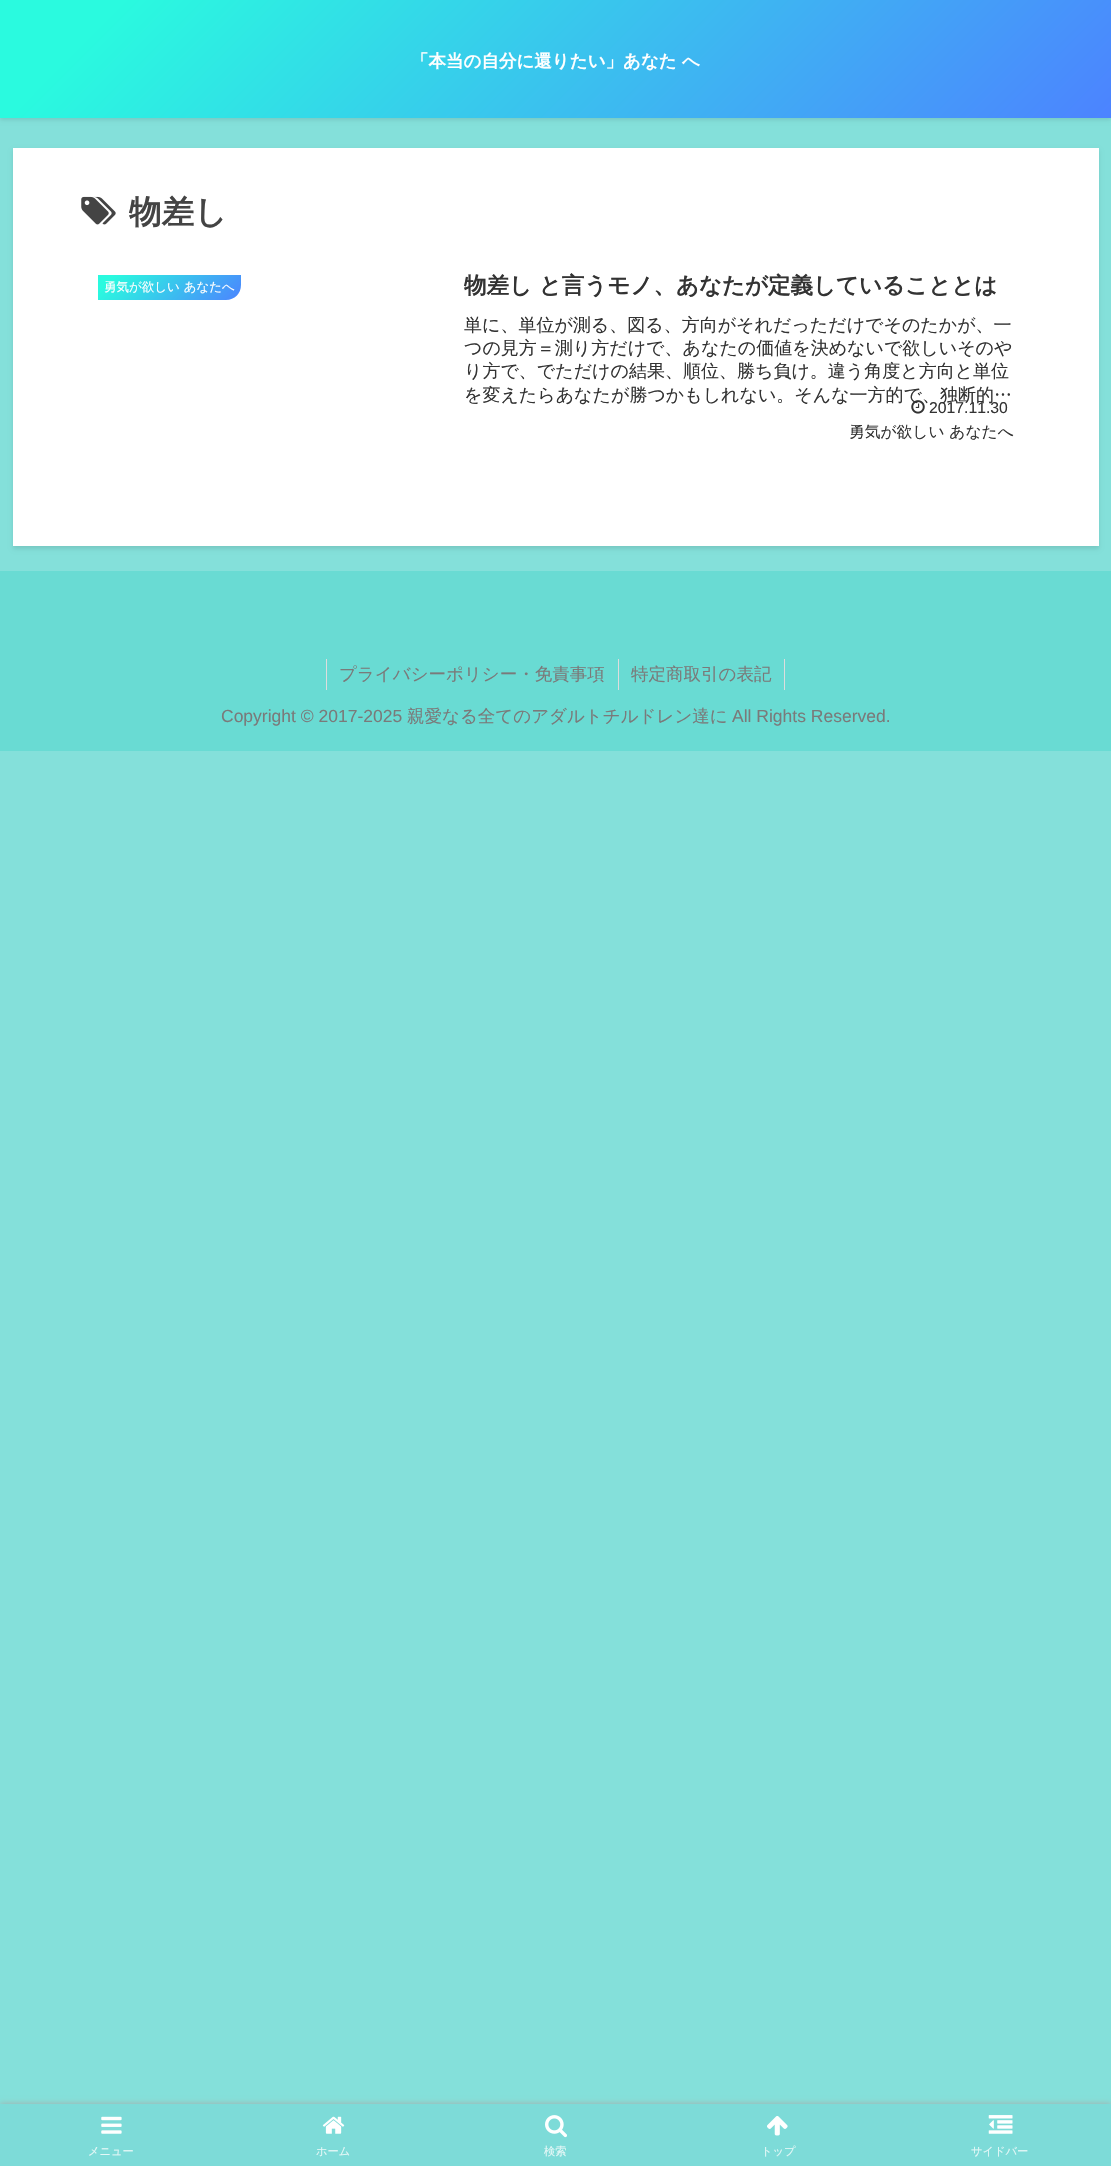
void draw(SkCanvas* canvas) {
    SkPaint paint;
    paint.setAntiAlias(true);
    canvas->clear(0xFF84E0DA);
    paint.setColor(0x1A000000);
    paint.setMaskFilter(SkMaskFilter::MakeBlur(kNormal_SkBlurStyle, 2));
    canvas->drawRect(SkRect::MakeXYWH(0, 3, 1111, 117), paint);
    paint.setMaskFilter(nullptr);
    {
        const SkColor colors[] = {0xFF2AFADF, 0xFF4C83FF};
        const float stops[] = {0.1f, 1};
        const SkPoint ends[] = {{248, -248}, {863, 366}};
        paint.setShader(SkGradientShader::MakeLinear(ends, colors, stops, 2, SkTileMode::kClamp));
        paint.setAlpha(255);
    }
    canvas->drawRect(SkRect::MakeXYWH(0, 0, 1111, 118), paint);
    SkFont font1(fontMgr->matchFamilyStyle("WenQuanYi Zen Hei", SkFontStyle::Bold()), 17.5f);
    font1.setSubpixel(true);
    paint.setShader(nullptr);
    paint.setColor(0xFFFFFFFF);
    canvas->drawString("「本当の自分に還りたい」あなた へ", 411, 67, font1, paint);
    paint.setColor(0x1A000000);
    paint.setMaskFilter(SkMaskFilter::MakeBlur(kNormal_SkBlurStyle, 2));
    canvas->drawRect(SkRect::MakeXYWH(13, 150, 1086, 399), paint);
    paint.setMaskFilter(nullptr);
    paint.setColor(0xFFFFFFFF);
    canvas->drawRect(SkRect::MakeXYWH(13, 148, 1086, 398), paint);
    canvas->drawImageRect(SkImages::DeferredFromEncodedData(SkData::MakeFromFileName("img1.png")), SkRect::MakeXYWH(81, 196, 35, 29), SkSamplingOptions());
    SkFont font2(fontMgr->matchFamilyStyle("WenQuanYi Zen Hei", SkFontStyle::Bold()), 32.5f);
    font2.setSubpixel(true);
    paint.setColor(0xFF444444);
    canvas->drawString("物差し", 129, 223, font2, paint);
    {
        const SkColor colors[] = {0xFF2AFADF, 0xFF4C83FF};
        const float stops[] = {0.1f, 1};
        const SkPoint ends[] = {{127, 245}, {212, 330}};
        paint.setShader(SkGradientShader::MakeLinear(ends, colors, stops, 2, SkTileMode::kClamp));
        paint.setAlpha(255);
    }
    canvas->drawPath(SkPathBuilder().moveTo(98, 275).lineTo(241, 275).lineTo(241, 285).cubicTo(241, 293.5f, 234.5f, 300, 226, 300).lineTo(98, 300).close().detach(), paint);
    SkFont font3(fontMgr->matchFamilyStyle("WenQuanYi Zen Hei", SkFontStyle(500, SkFontStyle::kNormal_Width, SkFontStyle::kUpright_Slant)), 12.5f);
    font3.setSubpixel(true);
    paint.setShader(nullptr);
    paint.setColor(0xFFFFFFFF);
    canvas->drawString("勇気が欲しい あなたへ", 104, 291, font3, paint);
    SkFont font4(fontMgr->matchFamilyStyle("WenQuanYi Zen Hei", SkFontStyle::Bold()), 22.5f);
    font4.setSubpixel(true);
    paint.setColor(0xFF333333);
    canvas->drawString("物差し と言うモノ、あなたが定義していることとは", 464, 293, font4, paint);
    SkFont font5(fontMgr->matchFamilyStyle("WenQuanYi Zen Hei", SkFontStyle(500, SkFontStyle::kNormal_Width, SkFontStyle::kUpright_Slant)), 18);
    font5.setSubpixel(true);
    canvas->drawString("単に、単位が測る、図る、方向がそれだっただけでそのたかが、一", 464, 331, font5, paint);
    canvas->drawString("つの見方＝測り方だけで、あなたの価値を決めないで欲しいそのや", 464, 354, font5, paint);
    canvas->drawString("り方で、でただけの結果、順位、勝ち負け。違う角度と方向と単位", 464, 377, font5, paint);
    canvas->drawString("を変えたらあなたが勝つかもしれない。そんな一方的で、独断的…", 464, 401, font5, paint);
    canvas->drawImageRect(SkImages::DeferredFromEncodedData(SkData::MakeFromFileName("img2.png")), SkRect::MakeXYWH(911, 400, 14, 14), SkSamplingOptions());
    SkFont font6(fontMgr->matchFamilyStyle("Liberation Sans", SkFontStyle::Normal()), 15.75f);
    font6.setSubpixel(true);
    canvas->drawString("2017.11.30", 929, 413, font6, paint);
    SkFont font7(fontMgr->matchFamilyStyle("WenQuanYi Zen Hei", SkFontStyle(500, SkFontStyle::kNormal_Width, SkFontStyle::kUpright_Slant)), 15.75f);
    font7.setSubpixel(true);
    canvas->drawString("勇気が欲しい あなたへ", 849, 437, font7, paint);
    paint.setColor(0xFF69DBD3);
    canvas->drawRect(SkRect::MakeXYWH(0, 571, 1111, 180), paint);
    paint.setColor(0xFFDDDDDD);
    canvas->drawRect(SkRect::MakeXYWH(326, 659, 1, 31), paint);
    SkFont font8(fontMgr->matchFamilyStyle("WenQuanYi Zen Hei", SkFontStyle(500, SkFontStyle::kNormal_Width, SkFontStyle::kUpright_Slant)), 17.5f);
    font8.setSubpixel(true);
    paint.setColor(0xFF7A7A7A);
    canvas->drawString("プライバシーポリシー・免責事項", 339, 680, font8, paint);
    paint.setColor(0xFFDDDDDD);
    canvas->drawRect(SkRect::MakeXYWH(784, 659, 1, 31), paint);
    canvas->drawRect(SkRect::MakeXYWH(618, 659, 1, 31), paint);
    paint.setColor(0xFF7A7A7A);
    canvas->drawString("特定商取引の表記", 631, 680, font8, paint);
    SkFont font9(fontMgr->matchFamilyStyle("Liberation Sans", SkFontStyle::Normal()), 17.5f);
    font9.setSubpixel(true);
    canvas->drawString("Copyright © 2017-2025", 221, 722, font9, paint);
    canvas->drawString("親愛なる全てのアダルトチルドレン達に", 407, 722, font8, paint);
    canvas->drawString("All Rights Reserved.", 732, 722, font9, paint);
    paint.setColor(0xFFA9A9A9);
    paint.setMaskFilter(SkMaskFilter::MakeBlur(kNormal_SkBlurStyle, 3));
    canvas->drawRect(SkRect::MakeXYWH(0, 2104, 1111, 62), paint);
    paint.setMaskFilter(nullptr);
    paint.setColor(0xFF7DDBD8);
    canvas->drawRect(SkRect::MakeXYWH(0, 2104, 1111, 62), paint);
    canvas->drawImageRect(SkImages::DeferredFromEncodedData(SkData::MakeFromFileName("img3.png")), SkRect::MakeXYWH(101, 2116, 21, 18), SkSamplingOptions());
    SkFont font10(fontMgr->matchFamilyStyle("WenQuanYi Zen Hei", SkFontStyle(500, SkFontStyle::kNormal_Width, SkFontStyle::kUpright_Slant)), 11.25f);
    font10.setSubpixel(true);
    paint.setColor(0xFFE5F8F7);
    canvas->drawString("メニュー", 88, 2155, font10, paint);
    canvas->drawImageRect(SkImages::DeferredFromEncodedData(SkData::MakeFromFileName("img4.png")), SkRect::MakeXYWH(322, 2116, 23, 18), SkSamplingOptions());
    canvas->drawString("ホーム", 316, 2155, font10, paint);
    canvas->drawImageRect(SkImages::DeferredFromEncodedData(SkData::MakeFromFileName("img5.png")), SkRect::MakeXYWH(545, 2115, 22, 23), SkSamplingOptions());
    canvas->drawString("検索", 544, 2155, font10, paint);
    canvas->drawImageRect(SkImages::DeferredFromEncodedData(SkData::MakeFromFileName("img6.png")), SkRect::MakeXYWH(767, 2116, 21, 20), SkSamplingOptions());
    canvas->drawString("トップ", 761, 2155, font10, paint);
    canvas->drawImageRect(SkImages::DeferredFromEncodedData(SkData::MakeFromFileName("img7.png")), SkRect::MakeXYWH(988, 2115, 25, 19), SkSamplingOptions());
    canvas->drawString("サイドバー", 971, 2155, font10, paint);
}
